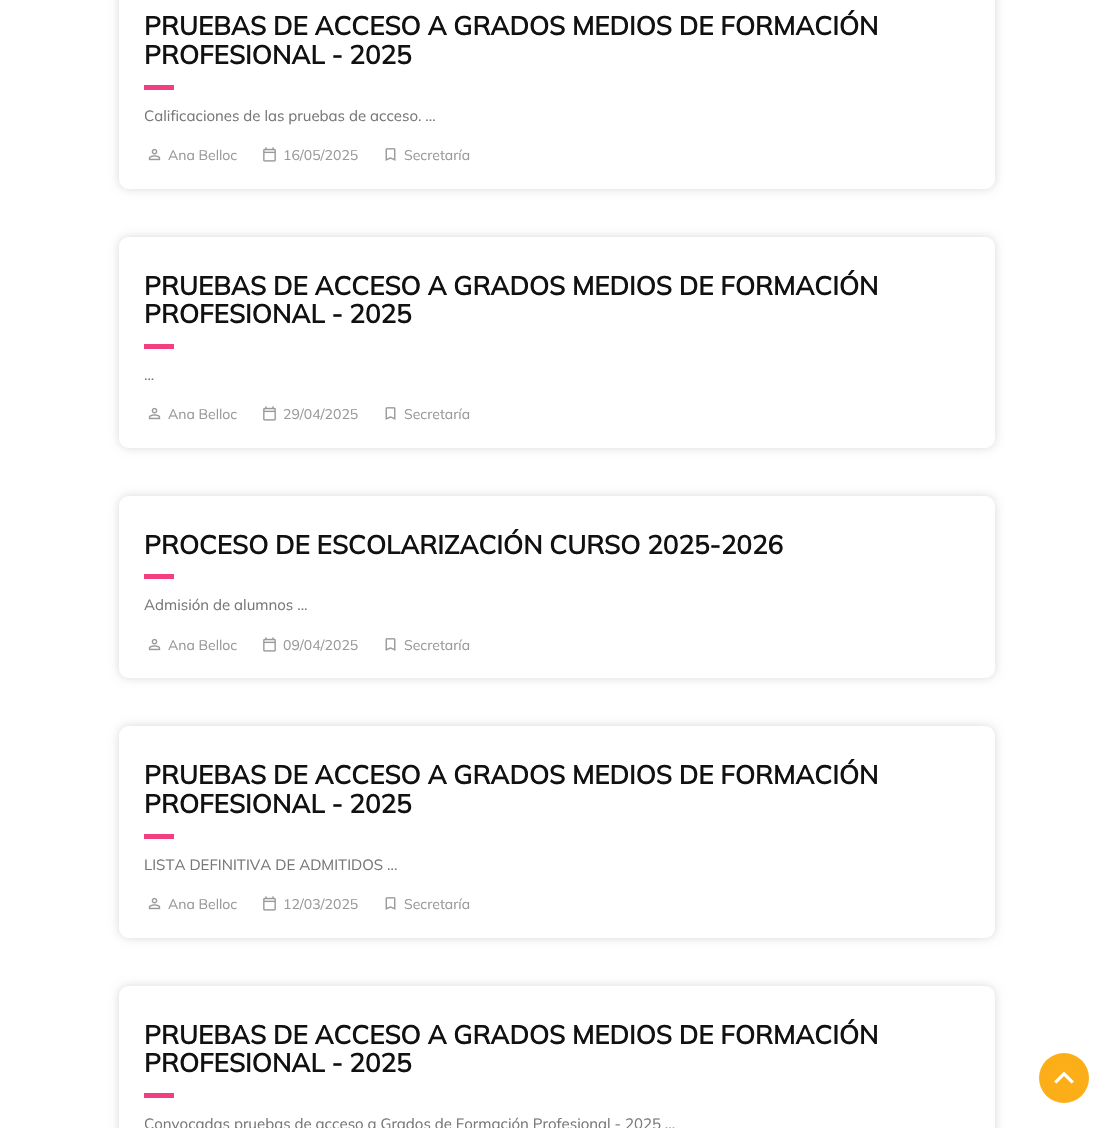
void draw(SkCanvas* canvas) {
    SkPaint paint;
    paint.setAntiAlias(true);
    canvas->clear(0xFFFFFFFF);
    canvas->save();
    canvas->clipPath(SkPathBuilder(SkPathFillType::kEvenOdd).moveTo(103, 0).lineTo(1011, 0).lineTo(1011, 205).lineTo(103, 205).close().moveTo(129, -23).lineTo(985, -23).cubicTo(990.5f, -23, 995, -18.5f, 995, -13).lineTo(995, 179).cubicTo(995, 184.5f, 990.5f, 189, 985, 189).lineTo(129, 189).cubicTo(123.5f, 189, 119, 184.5f, 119, 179).lineTo(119, -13).cubicTo(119, -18.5f, 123.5f, -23, 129, -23).close().detach(), true);
    paint.setColor(0x26000000);
    paint.setMaskFilter(SkMaskFilter::MakeBlur(kNormal_SkBlurStyle, 5));
    canvas->drawRoundRect(SkRect::MakeXYWH(119, -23, 876, 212), 10, 10, paint);
    paint.setMaskFilter(nullptr);
    canvas->restore();
    SkFont font1(fontMgr->matchFamilyStyle("Mulish", SkFontStyle::Bold()), 26);
    font1.setSubpixel(true);
    paint.setColor(0xFF111111);
    canvas->drawString("PRUEBAS DE ACCESO A GRADOS MEDIOS DE FORMACIÓN", 144, 35, font1, paint);
    canvas->drawString("PROFESIONAL - 2025", 144, 64, font1, paint);
    paint.setColor(0xFFF23F80);
    canvas->drawRect(SkRect::MakeXYWH(144, 85, 30, 5), paint);
    SkFont font2(fontMgr->matchFamilyStyle("Mulish", SkFontStyle(200, SkFontStyle::kNormal_Width, SkFontStyle::kUpright_Slant)), 15);
    font2.setSubpixel(true);
    paint.setColor(0xFF777777);
    canvas->drawString("Calificaciones de las pruebas de acceso. ...", 144, 121, font2, paint);
    canvas->drawImageRect(SkImages::DeferredFromEncodedData(SkData::MakeFromFileName("img1.png")), SkRect::MakeXYWH(148, 148, 13, 13), SkSamplingOptions());
    SkFont font3(fontMgr->matchFamilyStyle("Mulish", SkFontStyle(200, SkFontStyle::kNormal_Width, SkFontStyle::kUpright_Slant)), 14);
    font3.setSubpixel(true);
    paint.setColor(0xFF999999);
    canvas->drawString("Ana Belloc", 168, 160, font3, paint);
    canvas->drawImageRect(SkImages::DeferredFromEncodedData(SkData::MakeFromFileName("img2.png")), SkRect::MakeXYWH(263, 147, 13, 15), SkSamplingOptions());
    canvas->drawString("16/05/2025", 283, 160, font3, paint);
    canvas->drawImageRect(SkImages::DeferredFromEncodedData(SkData::MakeFromFileName("img3.png")), SkRect::MakeXYWH(385, 148, 11, 13), SkSamplingOptions());
    canvas->drawString("Secretaría", 404, 160, font3, paint);
    canvas->save();
    canvas->clipPath(SkPathBuilder(SkPathFillType::kEvenOdd).moveTo(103, 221).lineTo(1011, 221).lineTo(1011, 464).lineTo(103, 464).close().moveTo(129, 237).lineTo(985, 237).cubicTo(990.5f, 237, 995, 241.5f, 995, 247).lineTo(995, 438).cubicTo(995, 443.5f, 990.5f, 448, 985, 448).lineTo(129, 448).cubicTo(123.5f, 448, 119, 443.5f, 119, 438).lineTo(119, 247).cubicTo(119, 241.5f, 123.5f, 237, 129, 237).close().detach(), true);
    paint.setColor(0x26000000);
    paint.setMaskFilter(SkMaskFilter::MakeBlur(kNormal_SkBlurStyle, 5));
    canvas->drawRoundRect(SkRect::MakeXYWH(119, 237, 876, 211), 10, 10, paint);
    paint.setMaskFilter(nullptr);
    canvas->restore();
    paint.setColor(0xFF111111);
    canvas->drawString("PRUEBAS DE ACCESO A GRADOS MEDIOS DE FORMACIÓN", 144, 295, font1, paint);
    canvas->drawString("PROFESIONAL - 2025", 144, 323, font1, paint);
    paint.setColor(0xFFF23F80);
    canvas->drawRect(SkRect::MakeXYWH(144, 344, 30, 5), paint);
    paint.setColor(0xFF777777);
    canvas->drawString("...", 144, 380, font2, paint);
    canvas->drawImageRect(SkImages::DeferredFromEncodedData(SkData::MakeFromFileName("img1.png")), SkRect::MakeXYWH(148, 407, 13, 13), SkSamplingOptions());
    paint.setColor(0xFF999999);
    canvas->drawString("Ana Belloc", 168, 419, font3, paint);
    canvas->drawImageRect(SkImages::DeferredFromEncodedData(SkData::MakeFromFileName("img2.png")), SkRect::MakeXYWH(263, 406, 13, 15), SkSamplingOptions());
    canvas->drawString("29/04/2025", 283, 419, font3, paint);
    canvas->drawImageRect(SkImages::DeferredFromEncodedData(SkData::MakeFromFileName("img3.png")), SkRect::MakeXYWH(385, 407, 11, 13), SkSamplingOptions());
    canvas->drawString("Secretaría", 404, 419, font3, paint);
    canvas->save();
    canvas->clipPath(SkPathBuilder(SkPathFillType::kEvenOdd).moveTo(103, 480).lineTo(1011, 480).lineTo(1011, 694).lineTo(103, 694).close().moveTo(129, 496).lineTo(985, 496).cubicTo(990.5f, 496, 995, 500.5f, 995, 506).lineTo(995, 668).cubicTo(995, 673.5f, 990.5f, 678, 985, 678).lineTo(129, 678).cubicTo(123.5f, 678, 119, 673.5f, 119, 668).lineTo(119, 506).cubicTo(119, 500.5f, 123.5f, 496, 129, 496).close().detach(), true);
    paint.setColor(0x26000000);
    paint.setMaskFilter(SkMaskFilter::MakeBlur(kNormal_SkBlurStyle, 5));
    canvas->drawRoundRect(SkRect::MakeXYWH(119, 496, 876, 182), 10, 10, paint);
    paint.setMaskFilter(nullptr);
    canvas->restore();
    paint.setColor(0xFF111111);
    canvas->drawString("PROCESO DE ESCOLARIZACIÓN CURSO 2025-2026", 144, 554, font1, paint);
    paint.setColor(0xFFF23F80);
    canvas->drawRect(SkRect::MakeXYWH(144, 574, 30, 5), paint);
    paint.setColor(0xFF777777);
    canvas->drawString("Admisión de alumnos ...", 144, 610, font2, paint);
    canvas->drawImageRect(SkImages::DeferredFromEncodedData(SkData::MakeFromFileName("img1.png")), SkRect::MakeXYWH(148, 638, 13, 13), SkSamplingOptions());
    paint.setColor(0xFF999999);
    canvas->drawString("Ana Belloc", 168, 650, font3, paint);
    canvas->drawImageRect(SkImages::DeferredFromEncodedData(SkData::MakeFromFileName("img2.png")), SkRect::MakeXYWH(263, 637, 13, 15), SkSamplingOptions());
    canvas->drawString("09/04/2025", 283, 650, font3, paint);
    canvas->drawImageRect(SkImages::DeferredFromEncodedData(SkData::MakeFromFileName("img3.png")), SkRect::MakeXYWH(385, 638, 11, 13), SkSamplingOptions());
    canvas->drawString("Secretaría", 404, 650, font3, paint);
    canvas->save();
    canvas->clipPath(SkPathBuilder(SkPathFillType::kEvenOdd).moveTo(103, 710).lineTo(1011, 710).lineTo(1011, 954).lineTo(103, 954).close().moveTo(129, 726).lineTo(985, 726).cubicTo(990.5f, 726, 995, 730.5f, 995, 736).lineTo(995, 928).cubicTo(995, 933.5f, 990.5f, 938, 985, 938).lineTo(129, 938).cubicTo(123.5f, 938, 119, 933.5f, 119, 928).lineTo(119, 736).cubicTo(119, 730.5f, 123.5f, 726, 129, 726).close().detach(), true);
    paint.setColor(0x26000000);
    paint.setMaskFilter(SkMaskFilter::MakeBlur(kNormal_SkBlurStyle, 5));
    canvas->drawRoundRect(SkRect::MakeXYWH(119, 726, 876, 212), 10, 10, paint);
    paint.setMaskFilter(nullptr);
    canvas->restore();
    paint.setColor(0xFF111111);
    canvas->drawString("PRUEBAS DE ACCESO A GRADOS MEDIOS DE FORMACIÓN", 144, 784, font1, paint);
    canvas->drawString("PROFESIONAL - 2025", 144, 813, font1, paint);
    paint.setColor(0xFFF23F80);
    canvas->drawRect(SkRect::MakeXYWH(144, 834, 30, 5), paint);
    paint.setColor(0xFF777777);
    canvas->drawString("LISTA DEFINITIVA DE ADMITIDOS ...", 144, 870, font2, paint);
    canvas->drawImageRect(SkImages::DeferredFromEncodedData(SkData::MakeFromFileName("img1.png")), SkRect::MakeXYWH(148, 897, 13, 13), SkSamplingOptions());
    paint.setColor(0xFF999999);
    canvas->drawString("Ana Belloc", 168, 909, font3, paint);
    canvas->drawImageRect(SkImages::DeferredFromEncodedData(SkData::MakeFromFileName("img2.png")), SkRect::MakeXYWH(263, 896, 13, 15), SkSamplingOptions());
    canvas->drawString("12/03/2025", 283, 909, font3, paint);
    canvas->drawImageRect(SkImages::DeferredFromEncodedData(SkData::MakeFromFileName("img3.png")), SkRect::MakeXYWH(385, 897, 11, 13), SkSamplingOptions());
    canvas->drawString("Secretaría", 404, 909, font3, paint);
    canvas->save();
    canvas->clipPath(SkPathBuilder(SkPathFillType::kEvenOdd).moveTo(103, 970).lineTo(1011, 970).lineTo(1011, 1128).lineTo(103, 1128).close().moveTo(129, 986).lineTo(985, 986).cubicTo(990.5f, 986, 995, 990.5f, 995, 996).lineTo(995, 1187).cubicTo(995, 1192.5f, 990.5f, 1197, 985, 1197).lineTo(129, 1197).cubicTo(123.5f, 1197, 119, 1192.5f, 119, 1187).lineTo(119, 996).cubicTo(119, 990.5f, 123.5f, 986, 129, 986).close().detach(), true);
    paint.setColor(0x26000000);
    paint.setMaskFilter(SkMaskFilter::MakeBlur(kNormal_SkBlurStyle, 5));
    canvas->drawRoundRect(SkRect::MakeXYWH(119, 986, 876, 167), 10, 10, paint);
    paint.setMaskFilter(nullptr);
    canvas->restore();
    paint.setColor(0xFF111111);
    canvas->drawString("PRUEBAS DE ACCESO A GRADOS MEDIOS DE FORMACIÓN", 144, 1044, font1, paint);
    canvas->drawString("PROFESIONAL - 2025", 144, 1072, font1, paint);
    paint.setColor(0xFFF23F80);
    canvas->drawRect(SkRect::MakeXYWH(144, 1093, 30, 5), paint);
    paint.setColor(0xFF777777);
    canvas->drawString("Convocadas pruebas de acceso a Grados de Formación Profesional - 2025 ...", 144, 1129, font2, paint);
    paint.setColor(0xFFFBAE17);
    canvas->drawCircle(1064, 1078, 25, paint);
    paint.setColor(0xFFFFFFFF);
    canvas->drawPath(SkPathBuilder().moveTo(1056.5f, 1083.5f).lineTo(1054, 1081.5f).lineTo(1064, 1071.5f).lineTo(1074, 1081.5f).lineTo(1071.5f, 1083.5f).lineTo(1064, 1076).close().detach(), paint);
}
